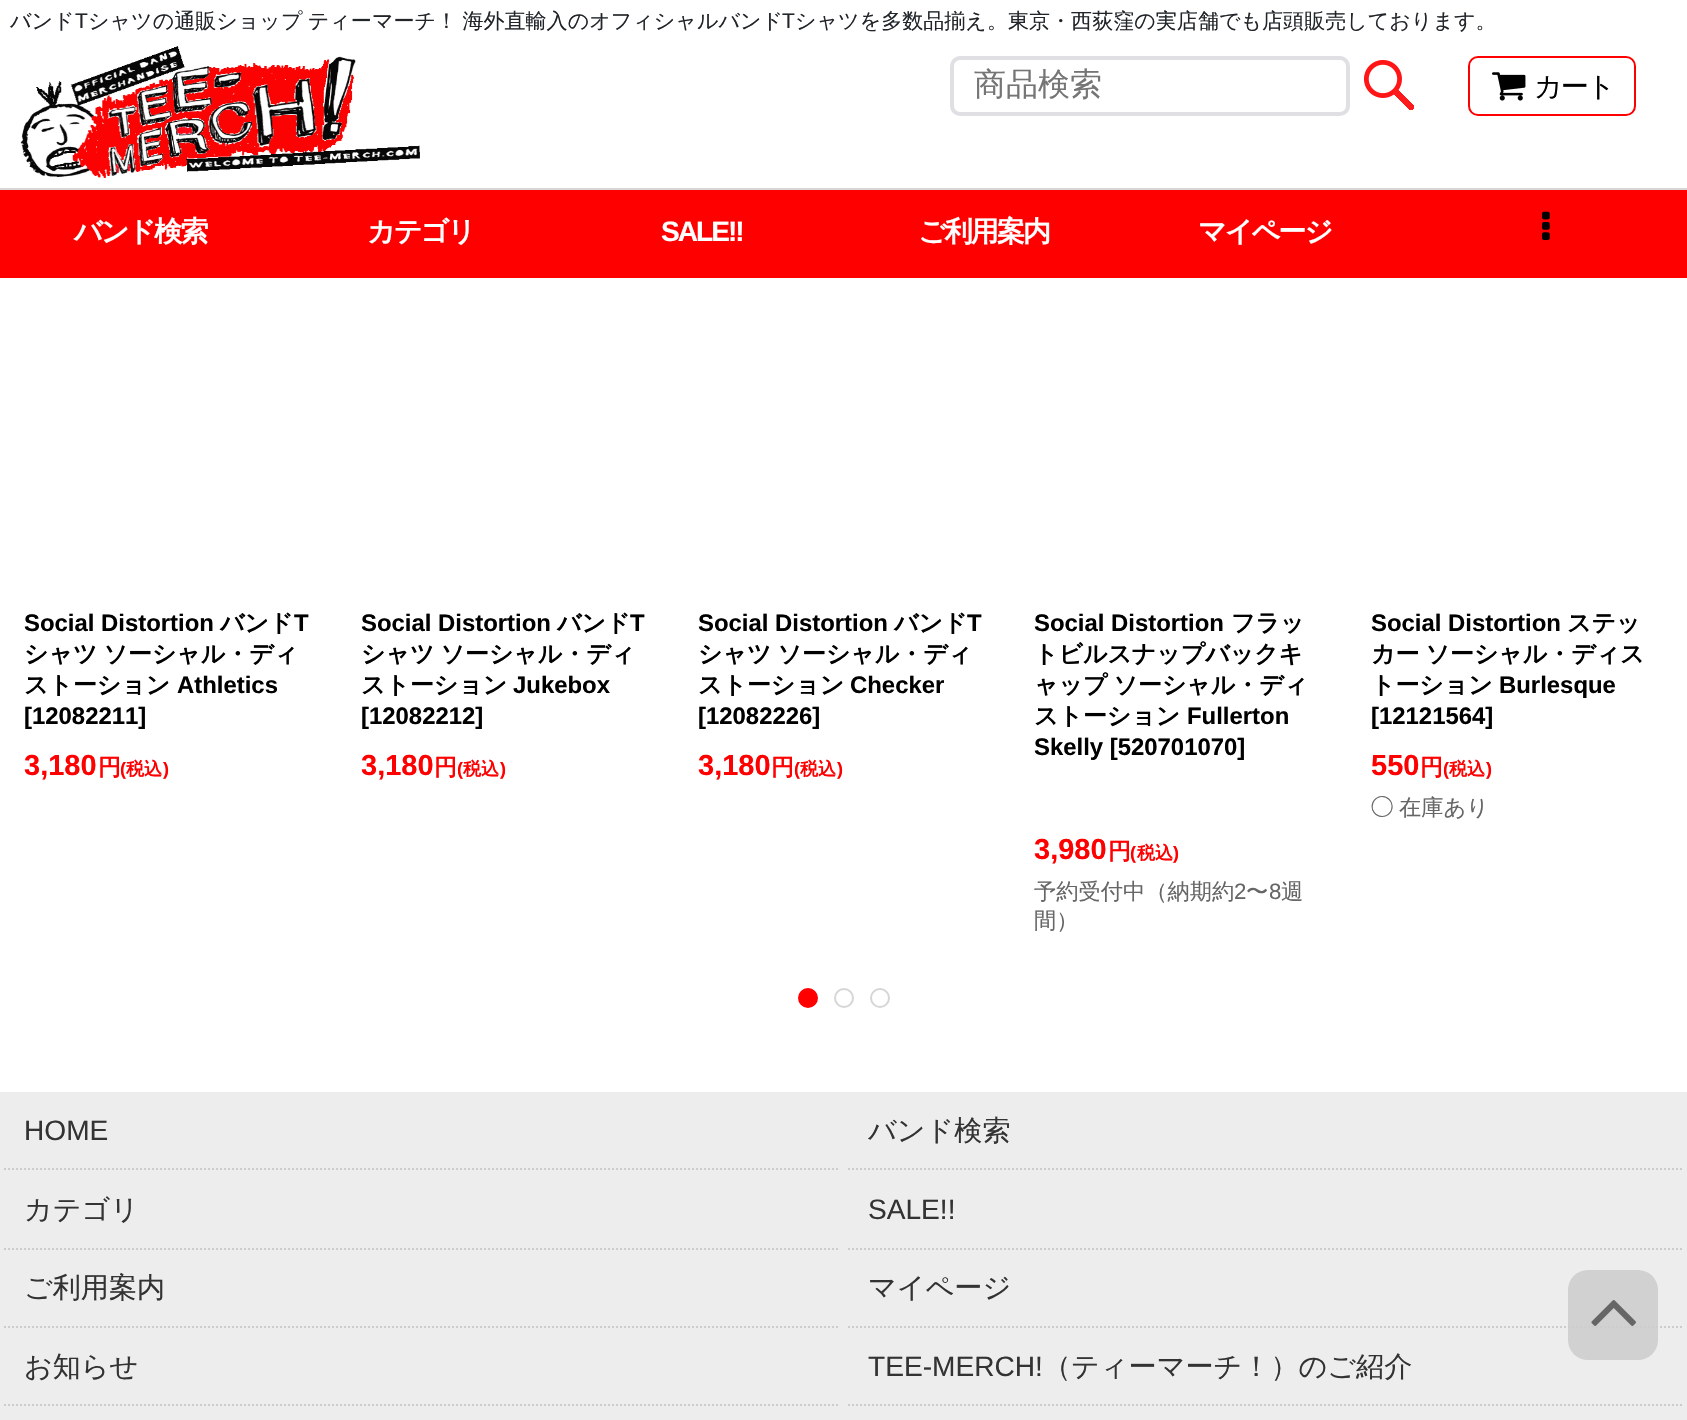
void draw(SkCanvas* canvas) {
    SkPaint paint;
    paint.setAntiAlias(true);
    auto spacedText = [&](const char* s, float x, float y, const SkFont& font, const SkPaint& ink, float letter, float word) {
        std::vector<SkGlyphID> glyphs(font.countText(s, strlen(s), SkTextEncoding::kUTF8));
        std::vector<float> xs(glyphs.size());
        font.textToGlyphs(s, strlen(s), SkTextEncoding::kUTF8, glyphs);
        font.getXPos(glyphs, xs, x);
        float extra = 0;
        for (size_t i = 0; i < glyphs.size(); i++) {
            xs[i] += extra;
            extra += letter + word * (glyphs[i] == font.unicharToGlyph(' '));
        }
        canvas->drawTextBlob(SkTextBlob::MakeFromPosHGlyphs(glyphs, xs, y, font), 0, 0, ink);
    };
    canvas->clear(0xFFFFFFFF);
    paint.setColor(0xFFD6D6D6);
    canvas->drawRect(SkRect::MakeXYWH(0, 188, 1687, 2), paint);
    SkFont font1(fontMgr->matchFamilyStyle("WenQuanYi Zen Hei", SkFontStyle(500, SkFontStyle::kNormal_Width, SkFontStyle::kUpright_Slant)), 21.05f);
    font1.setSubpixel(true);
    paint.setColor(0xFF212529);
    canvas->drawString("バンド", 10, 28, font1, paint);
    SkFont font2(fontMgr->matchFamilyStyle("Liberation Sans", SkFontStyle::Normal()), 21.05f);
    font2.setSubpixel(true);
    canvas->drawString("T", 75, 28, font2, paint);
    spacedText("シャツの通販ショップ ティーマーチ！ 海外直輸入のオフィシャルバンド", 88, 28, font1, paint, 0, -1);
    canvas->drawString("T", 782, 28, font2, paint);
    canvas->drawString("シャツを多数品揃え。東京・西荻窪の実店舗でも店頭販売しております。", 795, 28, font1, paint);
    paint.setStyle(SkPaint::kStroke_Style);
    paint.setStrokeWidth(4);
    paint.setColor(0xFFE0DFE3);
    canvas->drawRoundRect(SkRect::MakeXYWH(952, 58, 396, 56), 8, 8, paint);
    SkFont font3(fontMgr->matchFamilyStyle("WenQuanYi Zen Hei", SkFontStyle(500, SkFontStyle::kNormal_Width, SkFontStyle::kUpright_Slant)), 32);
    font3.setSubpixel(true);
    paint.setStyle(SkPaint::kFill_Style);
    paint.setColor(0xFF757575);
    canvas->drawString("商品検索", 974, 95, font3, paint);
    canvas->drawImageRect(SkImages::DeferredFromEncodedData(SkData::MakeFromFileName("img1.png")), SkRect::MakeXYWH(1364, 60, 50, 50), SkSamplingOptions());
    canvas->drawImageRect(SkImages::DeferredFromEncodedData(SkData::MakeFromFileName("img2.png")), SkRect::MakeXYWH(20, 46, 400, 132), SkSamplingOptions());
    paint.setStyle(SkPaint::kStroke_Style);
    paint.setStrokeWidth(2);
    paint.setColor(0xFFFF0000);
    canvas->drawRoundRect(SkRect::MakeXYWH(1469, 57, 166, 58), 9, 9, paint);
    canvas->drawImageRect(SkImages::DeferredFromEncodedData(SkData::MakeFromFileName("img3.png")), SkRect::MakeXYWH(1492, 72, 34, 29), SkSamplingOptions());
    SkFont font4(fontMgr->matchFamilyStyle("WenQuanYi Zen Hei", SkFontStyle(500, SkFontStyle::kNormal_Width, SkFontStyle::kUpright_Slant)), 28.1f);
    font4.setSubpixel(true);
    paint.setStyle(SkPaint::kFill_Style);
    paint.setColor(0xFF000000);
    spacedText("カート", 1534, 96, font4, paint, -2, 0);
    paint.setColor(0xFFFF0000);
    canvas->drawRect(SkRect::MakeXYWH(0, 190, 1687, 88), paint);
    SkFont font5(fontMgr->matchFamilyStyle("WenQuanYi Zen Hei", SkFontStyle::Bold()), 28.1f);
    font5.setSubpixel(true);
    paint.setColor(0xFFFFFFFF);
    spacedText("バンド検索", 74, 241, font5, paint, -2, 0);
    spacedText("カテゴリ", 367, 241, font5, paint, -2, 0);
    SkFont font6(fontMgr->matchFamilyStyle("Liberation Sans", SkFontStyle::Bold()), 28.1f);
    font6.setSubpixel(true);
    spacedText("SALE!!", 661, 241, font6, paint, -2, 0);
    spacedText("ご利用案内", 918, 241, font5, paint, -2, 0);
    spacedText("マイページ", 1198, 241, font5, paint, -2, 0);
    canvas->drawImageRect(SkImages::DeferredFromEncodedData(SkData::MakeFromFileName("img4.png")), SkRect::MakeXYWH(1542, 211, 8, 29), SkSamplingOptions());
    SkFont font7(fontMgr->matchFamilyStyle("Liberation Sans", SkFontStyle::Bold()), 23.9f);
    font7.setSubpixel(true);
    paint.setColor(0xFF000000);
    canvas->drawString("Social Distortion", 24, 631, font7, paint);
    SkFont font8(fontMgr->matchFamilyStyle("WenQuanYi Zen Hei", SkFontStyle::Bold()), 23.9f);
    font8.setSubpixel(true);
    canvas->drawString("バンド", 220, 631, font8, paint);
    canvas->drawString("T", 294, 631, font7, paint);
    spacedText("シャツ ソーシャル・ディ", 24, 662, font8, paint, 0, -1);
    canvas->drawString("ストーション", 24, 693, font8, paint);
    canvas->drawString("Athletics", 177, 693, font7, paint);
    canvas->drawString("[12082211]", 24, 724, font7, paint);
    SkFont font9(fontMgr->matchFamilyStyle("Liberation Sans", SkFontStyle::Bold()), 29);
    font9.setSubpixel(true);
    paint.setColor(0xFFFF0000);
    canvas->drawString("3,180", 24, 775, font9, paint);
    SkFont font10(fontMgr->matchFamilyStyle("WenQuanYi Zen Hei", SkFontStyle::Bold()), 23);
    font10.setSubpixel(true);
    canvas->drawString("円", 98, 775, font10, paint);
    SkFont font11(fontMgr->matchFamilyStyle("Liberation Sans", SkFontStyle::Bold()), 18);
    font11.setSubpixel(true);
    canvas->drawString("(", 120, 775, font11, paint);
    SkFont font12(fontMgr->matchFamilyStyle("WenQuanYi Zen Hei", SkFontStyle::Bold()), 18);
    font12.setSubpixel(true);
    canvas->drawString("税込", 126, 775, font12, paint);
    canvas->drawString(")", 163, 775, font11, paint);
    paint.setColor(0xFF000000);
    canvas->drawString("Social Distortion", 361, 631, font7, paint);
    canvas->drawString("バンド", 557, 631, font8, paint);
    canvas->drawString("T", 630, 631, font7, paint);
    spacedText("シャツ ソーシャル・ディ", 361, 662, font8, paint, 0, -1);
    canvas->drawString("ストーション", 361, 693, font8, paint);
    canvas->drawString("Jukebox", 513, 693, font7, paint);
    canvas->drawString("[12082212]", 361, 724, font7, paint);
    paint.setColor(0xFFFF0000);
    canvas->drawString("3,180", 361, 775, font9, paint);
    canvas->drawString("円", 434, 775, font10, paint);
    canvas->drawString("(", 457, 775, font11, paint);
    canvas->drawString("税込", 463, 775, font12, paint);
    canvas->drawString(")", 500, 775, font11, paint);
    paint.setColor(0xFF000000);
    canvas->drawString("Social Distortion", 698, 631, font7, paint);
    canvas->drawString("バンド", 894, 631, font8, paint);
    canvas->drawString("T", 967, 631, font7, paint);
    spacedText("シャツ ソーシャル・ディ", 698, 662, font8, paint, 0, -1);
    canvas->drawString("ストーション", 698, 693, font8, paint);
    canvas->drawString("Checker", 850, 693, font7, paint);
    canvas->drawString("[12082226]", 698, 724, font7, paint);
    paint.setColor(0xFFFF0000);
    canvas->drawString("3,180", 698, 775, font9, paint);
    canvas->drawString("円", 771, 775, font10, paint);
    canvas->drawString("(", 794, 775, font11, paint);
    canvas->drawString("税込", 800, 775, font12, paint);
    canvas->drawString(")", 837, 775, font11, paint);
    paint.setColor(0xFF000000);
    canvas->drawString("Social Distortion", 1034, 631, font7, paint);
    canvas->drawString("フラッ", 1231, 631, font8, paint);
    canvas->drawString("トビルスナップバックキ", 1034, 662, font8, paint);
    spacedText("ャップ ソーシャル・ディ", 1034, 693, font8, paint, 0, -1);
    canvas->drawString("ストーション", 1034, 724, font8, paint);
    canvas->drawString("Fullerton", 1187, 724, font7, paint);
    canvas->drawString("Skelly [520701070]", 1034, 755, font7, paint);
    paint.setColor(0xFFFF0000);
    canvas->drawString("3,980", 1034, 859, font9, paint);
    canvas->drawString("円", 1108, 859, font10, paint);
    canvas->drawString("(", 1130, 859, font11, paint);
    canvas->drawString("税込", 1137, 859, font12, paint);
    canvas->drawString(")", 1173, 859, font11, paint);
    SkFont font13(fontMgr->matchFamilyStyle("WenQuanYi Zen Hei", SkFontStyle(500, SkFontStyle::kNormal_Width, SkFontStyle::kUpright_Slant)), 22.25f);
    font13.setSubpixel(true);
    paint.setColor(0xFF666666);
    canvas->drawString("予約受付中（納期約", 1034, 899, font13, paint);
    SkFont font14(fontMgr->matchFamilyStyle("Liberation Sans", SkFontStyle::Normal()), 22.25f);
    font14.setSubpixel(true);
    canvas->drawString("2", 1234, 899, font14, paint);
    canvas->drawString("〜", 1246, 899, font13, paint);
    canvas->drawString("8", 1269, 899, font14, paint);
    canvas->drawString("週", 1281, 899, font13, paint);
    canvas->drawString("間）", 1034, 928, font13, paint);
    paint.setColor(0xFF000000);
    canvas->drawString("Social Distortion", 1371, 631, font7, paint);
    canvas->drawString("ステッ", 1567, 631, font8, paint);
    spacedText("カー ソーシャル・ディス", 1371, 662, font8, paint, 0, -1);
    canvas->drawString("トーション", 1371, 693, font8, paint);
    canvas->drawString("Burlesque", 1499, 693, font7, paint);
    canvas->drawString("[12121564]", 1371, 724, font7, paint);
    paint.setColor(0xFFFF0000);
    canvas->drawString("550", 1371, 775, font9, paint);
    canvas->drawString("円", 1420, 775, font10, paint);
    canvas->drawString("(", 1443, 775, font11, paint);
    canvas->drawString("税込", 1449, 775, font12, paint);
    canvas->drawString(")", 1486, 775, font11, paint);
    SkFont font15(fontMgr->matchFamilyStyle("IPAPGothic", SkFontStyle::Normal()), 22.25f);
    font15.setSubpixel(true);
    paint.setColor(0xFF666666);
    canvas->drawString("◯", 1371, 815, font15, paint);
    canvas->drawString("在庫あり", 1399, 815, font13, paint);
    paint.setColor(0xFFFF0000);
    canvas->drawCircle(808, 998, 9, paint);
    paint.setStyle(SkPaint::kStroke_Style);
    canvas->drawCircle(808, 998, 9, paint);
    paint.setColor(0xFFD6D6D6);
    canvas->drawCircle(844, 998, 9, paint);
    canvas->drawCircle(880, 998, 9, paint);
    paint.setStyle(SkPaint::kFill_Style);
    paint.setColor(0xFFEDEDED);
    canvas->drawRect(SkRect::MakeXYWH(0, 1092, 1687, 328), paint);
    paint.setStyle(SkPaint::kStroke_Style);
    paint.setColor(0xFFCCCCCC);
    paint.setPathEffect(SkDashPathEffect::Make({{2, 2}}, 0));
    canvas->drawPath(SkPathBuilder().moveTo(4, 1169).lineTo(840, 1169).detach(), paint);
    paint.setPathEffect(nullptr);
    SkFont font16(fontMgr->matchFamilyStyle("Liberation Sans", SkFontStyle::Normal()), 28.1f);
    font16.setSubpixel(true);
    paint.setStyle(SkPaint::kFill_Style);
    paint.setColor(0xFF333333);
    canvas->drawString("HOME", 24, 1140, font16, paint);
    paint.setStyle(SkPaint::kStroke_Style);
    paint.setColor(0xFFCCCCCC);
    paint.setPathEffect(SkDashPathEffect::Make({{2, 2}}, 0));
    canvas->drawPath(SkPathBuilder().moveTo(848, 1169).lineTo(1684, 1169).detach(), paint);
    paint.setPathEffect(nullptr);
    paint.setStyle(SkPaint::kFill_Style);
    paint.setColor(0xFF333333);
    canvas->drawString("バンド検索", 868, 1140, font4, paint);
    paint.setStyle(SkPaint::kStroke_Style);
    paint.setColor(0xFFCCCCCC);
    paint.setPathEffect(SkDashPathEffect::Make({{2, 2}}, 0));
    canvas->drawPath(SkPathBuilder().moveTo(4, 1249).lineTo(840, 1249).detach(), paint);
    paint.setPathEffect(nullptr);
    paint.setStyle(SkPaint::kFill_Style);
    paint.setColor(0xFF333333);
    canvas->drawString("カテゴリ", 24, 1219, font4, paint);
    paint.setStyle(SkPaint::kStroke_Style);
    paint.setColor(0xFFCCCCCC);
    paint.setPathEffect(SkDashPathEffect::Make({{2, 2}}, 0));
    canvas->drawPath(SkPathBuilder().moveTo(848, 1249).lineTo(1684, 1249).detach(), paint);
    paint.setPathEffect(nullptr);
    paint.setStyle(SkPaint::kFill_Style);
    paint.setColor(0xFF333333);
    canvas->drawString("SALE!!", 868, 1219, font16, paint);
    paint.setStyle(SkPaint::kStroke_Style);
    paint.setColor(0xFFCCCCCC);
    paint.setPathEffect(SkDashPathEffect::Make({{2, 2}}, 0));
    canvas->drawPath(SkPathBuilder().moveTo(4, 1327).lineTo(840, 1327).detach(), paint);
    paint.setPathEffect(nullptr);
    paint.setStyle(SkPaint::kFill_Style);
    paint.setColor(0xFF333333);
    canvas->drawString("ご利用案内", 24, 1297, font4, paint);
    paint.setStyle(SkPaint::kStroke_Style);
    paint.setColor(0xFFCCCCCC);
    paint.setPathEffect(SkDashPathEffect::Make({{2, 2}}, 0));
    canvas->drawPath(SkPathBuilder().moveTo(848, 1327).lineTo(1684, 1327).detach(), paint);
    paint.setPathEffect(nullptr);
    paint.setStyle(SkPaint::kFill_Style);
    paint.setColor(0xFF333333);
    canvas->drawString("マイページ", 868, 1297, font4, paint);
    paint.setStyle(SkPaint::kStroke_Style);
    paint.setColor(0xFFCCCCCC);
    paint.setPathEffect(SkDashPathEffect::Make({{2, 2}}, 0));
    canvas->drawPath(SkPathBuilder().moveTo(4, 1405).lineTo(840, 1405).detach(), paint);
    paint.setPathEffect(nullptr);
    paint.setStyle(SkPaint::kFill_Style);
    paint.setColor(0xFF333333);
    canvas->drawString("お知らせ", 24, 1376, font4, paint);
    paint.setStyle(SkPaint::kStroke_Style);
    paint.setColor(0xFFCCCCCC);
    paint.setPathEffect(SkDashPathEffect::Make({{2, 2}}, 0));
    canvas->drawPath(SkPathBuilder().moveTo(848, 1405).lineTo(1684, 1405).detach(), paint);
    paint.setPathEffect(nullptr);
    paint.setStyle(SkPaint::kFill_Style);
    paint.setColor(0xFF333333);
    canvas->drawString("TEE-MERCH!", 868, 1376, font16, paint);
    canvas->drawString("（ティーマーチ！）のご紹介", 1043, 1376, font4, paint);
    paint.setColor(0xDECCCCCC);
    canvas->drawRoundRect(SkRect::MakeXYWH(1568, 1270, 90, 90), 20, 20, paint);
    canvas->drawImageRect(SkImages::DeferredFromEncodedData(SkData::MakeFromFileName("img5.png")), SkRect::MakeXYWH(1591, 1300, 45, 26), SkSamplingOptions());
}
